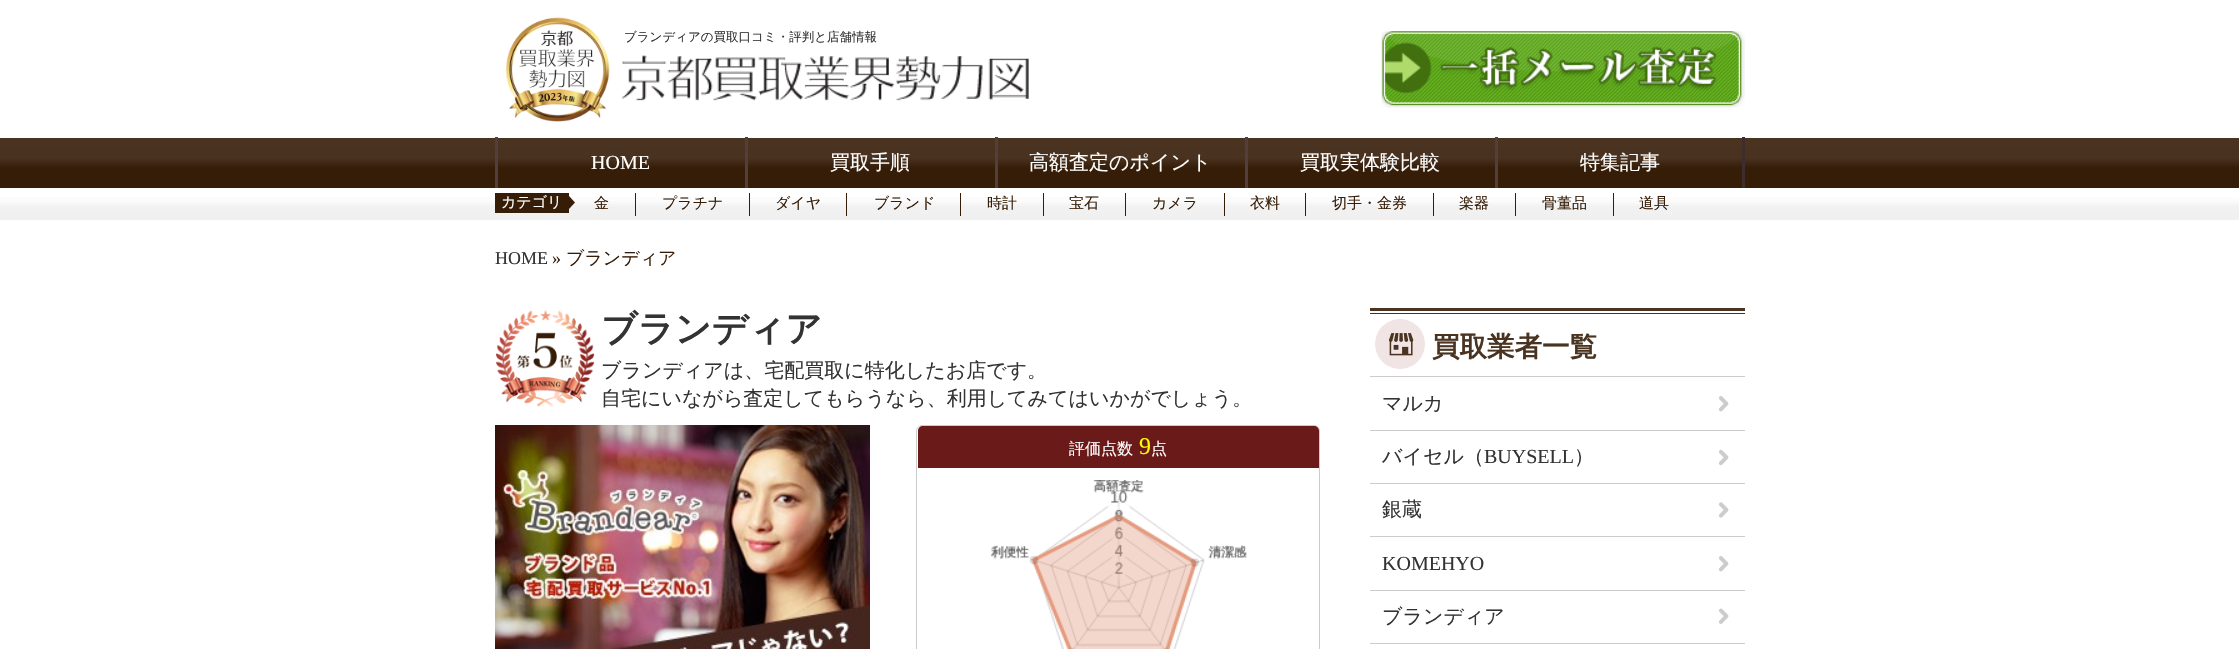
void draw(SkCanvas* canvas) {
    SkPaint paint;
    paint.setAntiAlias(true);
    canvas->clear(0xFFFFFFFF);
    canvas->drawImageRect(SkImages::DeferredFromEncodedData(SkData::MakeFromFileName("img1.png")), SkRect::MakeXYWH(505, 17, 105, 105), SkSamplingOptions());
    SkFont font1(fontMgr->matchFamilyStyle("WenQuanYi Zen Hei", SkFontStyle(500, SkFontStyle::kNormal_Width, SkFontStyle::kUpright_Slant)), 12.5f);
    font1.setSubpixel(true);
    paint.setColor(0xFF333333);
    canvas->drawString("ブランディアの買取口コミ・評判と店舗情報", 624, 41, font1, paint);
    canvas->drawImageRect(SkImages::DeferredFromEncodedData(SkData::MakeFromFileName("img2.png")), SkRect::MakeXYWH(621, 55, 408, 46), SkSamplingOptions());
    canvas->drawImageRect(SkImages::DeferredFromEncodedData(SkData::MakeFromFileName("img3.png")), SkRect::MakeXYWH(1381, 31, 364, 77), SkSamplingOptions());
    {
        const SkColor colors[] = {0xFF4A3421, 0xFF49321F, 0xFF361D08, 0xFF361D08};
        const float stops[] = {0, 0.41f, 0.61f, 1};
        const SkPoint ends[] = {{1120, 137}, {1120, 188}};
        paint.setShader(SkGradientShader::MakeLinear(ends, colors, stops, 4, SkTileMode::kClamp));
        paint.setAlpha(255);
    }
    canvas->drawRect(SkRect::MakeXYWH(0, 138, 2239, 50), paint);
    paint.setShader(nullptr);
    paint.setColor(0xFF523E3D);
    canvas->drawRect(SkRect::MakeXYWH(495, 137, 3, 51), paint);
    SkFont font2(fontMgr->matchFamilyStyle("Liberation Serif", SkFontStyle::Normal()), 20);
    font2.setSubpixel(true);
    paint.setColor(0xFFFFFFFF);
    canvas->drawString("HOME", 591, 169, font2, paint);
    paint.setColor(0xFF523E3D);
    canvas->drawRect(SkRect::MakeXYWH(745, 137, 3, 51), paint);
    SkFont font3(fontMgr->matchFamilyStyle("WenQuanYi Zen Hei", SkFontStyle(500, SkFontStyle::kNormal_Width, SkFontStyle::kUpright_Slant)), 20);
    font3.setSubpixel(true);
    paint.setColor(0xFFFFFFFF);
    canvas->drawString("買取手順", 830, 169, font3, paint);
    paint.setColor(0xFF523E3D);
    canvas->drawRect(SkRect::MakeXYWH(995, 137, 3, 51), paint);
    paint.setColor(0xFFFFFFFF);
    canvas->drawString("高額査定のポイント", 1029, 169, font3, paint);
    paint.setColor(0xFF523E3D);
    canvas->drawRect(SkRect::MakeXYWH(1245, 137, 3, 51), paint);
    paint.setColor(0xFFFFFFFF);
    canvas->drawString("買取実体験比較", 1300, 169, font3, paint);
    paint.setColor(0xFF523E3D);
    canvas->drawRect(SkRect::MakeXYWH(1495, 137, 3, 51), paint);
    paint.setColor(0xFFFFFFFF);
    canvas->drawString("特集記事", 1580, 169, font3, paint);
    paint.setColor(0xFF3D2D2C);
    canvas->drawRect(SkRect::MakeXYWH(1742, 137, 3, 51), paint);
    {
        const SkColor colors[] = {0xFFFEFEFE, 0xFFFCFCFC, 0xFFF1F1F1, 0xFFF0F0F0};
        const float stops[] = {0, 0.41f, 0.61f, 1};
        const SkPoint ends[] = {{1120, 187}, {1120, 220}};
        paint.setShader(SkGradientShader::MakeLinear(ends, colors, stops, 4, SkTileMode::kClamp));
        paint.setAlpha(255);
    }
    canvas->drawRect(SkRect::MakeXYWH(0, 197, 2239, 23), paint);
    paint.setShader(nullptr);
    paint.setColor(0xFF361D08);
    canvas->drawRect(SkRect::MakeXYWH(495, 193, 74, 20), paint);
    SkFont font4(fontMgr->matchFamilyStyle("WenQuanYi Zen Hei", SkFontStyle(500, SkFontStyle::kNormal_Width, SkFontStyle::kUpright_Slant)), 15);
    font4.setSubpixel(true);
    paint.setColor(0xFFFFFFFF);
    canvas->drawString("カテゴリ", 501, 207, font4, paint);
    paint.setColor(0xFF361D08);
    canvas->drawPath(SkPathBuilder().moveTo(569, 209).lineTo(569, 196).lineTo(575, 202.5f).close().detach(), paint);
    canvas->drawRect(SkRect::MakeXYWH(635, 193, 1, 23), paint);
    canvas->drawString("金", 594, 208, font4, paint);
    canvas->drawRect(SkRect::MakeXYWH(749, 193, 1, 23), paint);
    canvas->drawString("プラチナ", 662, 208, font4, paint);
    canvas->drawRect(SkRect::MakeXYWH(846, 193, 1, 23), paint);
    canvas->drawString("ダイヤ", 775, 208, font4, paint);
    canvas->drawRect(SkRect::MakeXYWH(960, 193, 1, 23), paint);
    canvas->drawString("ブランド", 874, 208, font4, paint);
    canvas->drawRect(SkRect::MakeXYWH(1043, 193, 1, 23), paint);
    canvas->drawString("時計", 987, 208, font4, paint);
    canvas->drawRect(SkRect::MakeXYWH(1125, 193, 1, 23), paint);
    canvas->drawString("宝石", 1069, 208, font4, paint);
    canvas->drawRect(SkRect::MakeXYWH(1224, 193, 1, 23), paint);
    canvas->drawString("カメラ", 1152, 208, font4, paint);
    canvas->drawRect(SkRect::MakeXYWH(1305, 193, 1, 23), paint);
    canvas->drawString("衣料", 1250, 208, font4, paint);
    canvas->drawRect(SkRect::MakeXYWH(1433, 193, 1, 23), paint);
    canvas->drawString("切手・金券", 1332, 208, font4, paint);
    canvas->drawRect(SkRect::MakeXYWH(1515, 193, 1, 23), paint);
    canvas->drawString("楽器", 1459, 208, font4, paint);
    canvas->drawRect(SkRect::MakeXYWH(1613, 193, 1, 23), paint);
    canvas->drawString("骨董品", 1542, 208, font4, paint);
    canvas->drawString("道具", 1639, 208, font4, paint);
    SkFont font5(fontMgr->matchFamilyStyle("Liberation Serif", SkFontStyle::Normal()), 18);
    font5.setSubpixel(true);
    paint.setColor(0xFF333333);
    canvas->drawString("HOME", 495, 264, font5, paint);
    paint.setColor(0xFF361D08);
    canvas->drawString("»", 552, 264, font5, paint);
    SkFont font6(fontMgr->matchFamilyStyle("WenQuanYi Zen Hei", SkFontStyle(500, SkFontStyle::kNormal_Width, SkFontStyle::kUpright_Slant)), 18);
    font6.setSubpixel(true);
    canvas->drawString("ブランディア", 566, 264, font6, paint);
    canvas->drawImageRect(SkImages::DeferredFromEncodedData(SkData::MakeFromFileName("img4.png")), SkRect::MakeXYWH(496, 310, 99, 97), SkSamplingOptions());
    SkFont font7(fontMgr->matchFamilyStyle("WenQuanYi Zen Hei", SkFontStyle::Bold()), 36);
    font7.setSubpixel(true);
    paint.setColor(0xFF333333);
    canvas->drawString("ブランディア", 601, 341, font7, paint);
    canvas->drawString("ブランディアは、宅配買取に特化したお店です。", 601, 377, font3, paint);
    canvas->drawString("自宅にいながら査定してもらうなら、利用してみてはいかがでしょう。", 601, 405, font3, paint);
    canvas->drawImageRect(SkImages::DeferredFromEncodedData(SkData::MakeFromFileName("img5.png")), SkRect::MakeXYWH(495, 425, 375, 224), SkSamplingOptions());
    paint.setStyle(SkPaint::kStroke_Style);
    paint.setStrokeWidth(1);
    paint.setColor(0xFFCCCCCC);
    canvas->drawRoundRect(SkRect::MakeXYWH(916.5f, 425.5f, 403, 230), 5.5f, 5.5f, paint);
    paint.setStyle(SkPaint::kFill_Style);
    paint.setColor(0xFF6A1A19);
    canvas->drawPath(SkPathBuilder().moveTo(923, 426).lineTo(1314, 426).cubicTo(1317, 426, 1319, 428, 1319, 431).lineTo(1319, 468).lineTo(918, 468).lineTo(918, 431).cubicTo(918, 428, 920, 426, 923, 426).close().detach(), paint);
    SkFont font8(fontMgr->matchFamilyStyle("WenQuanYi Zen Hei", SkFontStyle(500, SkFontStyle::kNormal_Width, SkFontStyle::kUpright_Slant)), 16);
    font8.setSubpixel(true);
    paint.setColor(0xFFFFFFFF);
    canvas->drawString("評価点数", 1069, 454, font8, paint);
    SkFont font9(fontMgr->matchFamilyStyle("Liberation Serif", SkFontStyle::Normal()), 24);
    font9.setSubpixel(true);
    paint.setColor(0xFFFCFF00);
    canvas->drawString("9", 1139, 454, font9, paint);
    paint.setColor(0xFFFFFFFF);
    canvas->drawString("点", 1151, 454, font8, paint);
    canvas->drawImageRect(SkImages::DeferredFromEncodedData(SkData::MakeFromFileName("img6.png")), SkRect::MakeXYWH(991, 480, 256, 169), SkSamplingOptions());
    paint.setColor(0xFF4A3421);
    canvas->drawRect(SkRect::MakeXYWH(1370, 308, 375, 3), paint);
    canvas->drawRect(SkRect::MakeXYWH(1370, 313, 375, 1), paint);
    paint.setColor(0xFFF1E4E4);
    canvas->drawCircle(1400, 344, 25, paint);
    canvas->drawImageRect(SkImages::DeferredFromEncodedData(SkData::MakeFromFileName("img7.png")), SkRect::MakeXYWH(1388, 333, 26, 23), SkSamplingOptions());
    SkFont font10(fontMgr->matchFamilyStyle("WenQuanYi Zen Hei", SkFontStyle::Bold()), 27.5f);
    font10.setSubpixel(true);
    paint.setColor(0xFF4A3421);
    canvas->drawString("買取業者一覧", 1432, 356, font10, paint);
    paint.setColor(0xFFCCCCCC);
    canvas->drawRect(SkRect::MakeXYWH(1370, 376, 375, 1), paint);
    canvas->drawRect(SkRect::MakeXYWH(1370, 430, 375, 1), paint);
    paint.setColor(0xFF333333);
    canvas->drawString("マルカ", 1382, 410, font3, paint);
    canvas->drawImageRect(SkImages::DeferredFromEncodedData(SkData::MakeFromFileName("img8.png")), SkRect::MakeXYWH(1718, 396, 11, 16), SkSamplingOptions());
    paint.setColor(0xFFCCCCCC);
    canvas->drawRect(SkRect::MakeXYWH(1370, 483, 375, 1), paint);
    paint.setColor(0xFF333333);
    canvas->drawString("バイセル（", 1382, 463, font3, paint);
    canvas->drawString("BUYSELL", 1484, 463, font2, paint);
    canvas->drawString("）", 1574, 463, font3, paint);
    canvas->drawImageRect(SkImages::DeferredFromEncodedData(SkData::MakeFromFileName("img9.png")), SkRect::MakeXYWH(1719, 449, 10, 17), SkSamplingOptions());
    paint.setColor(0xFFCCCCCC);
    canvas->drawRect(SkRect::MakeXYWH(1370, 536, 375, 1), paint);
    paint.setColor(0xFF333333);
    canvas->drawString("銀蔵", 1382, 516, font3, paint);
    canvas->drawImageRect(SkImages::DeferredFromEncodedData(SkData::MakeFromFileName("img10.png")), SkRect::MakeXYWH(1718, 502, 11, 16), SkSamplingOptions());
    paint.setColor(0xFFCCCCCC);
    canvas->drawRect(SkRect::MakeXYWH(1370, 590, 375, 1), paint);
    paint.setColor(0xFF333333);
    canvas->drawString("KOMEHYO", 1382, 570, font2, paint);
    canvas->drawImageRect(SkImages::DeferredFromEncodedData(SkData::MakeFromFileName("img8.png")), SkRect::MakeXYWH(1718, 556, 11, 16), SkSamplingOptions());
    paint.setColor(0xFFCCCCCC);
    canvas->drawRect(SkRect::MakeXYWH(1370, 643, 375, 1), paint);
    paint.setColor(0xFF333333);
    canvas->drawString("ブランディア", 1382, 623, font3, paint);
    canvas->drawImageRect(SkImages::DeferredFromEncodedData(SkData::MakeFromFileName("img11.png")), SkRect::MakeXYWH(1718, 608, 11, 16), SkSamplingOptions());
}
